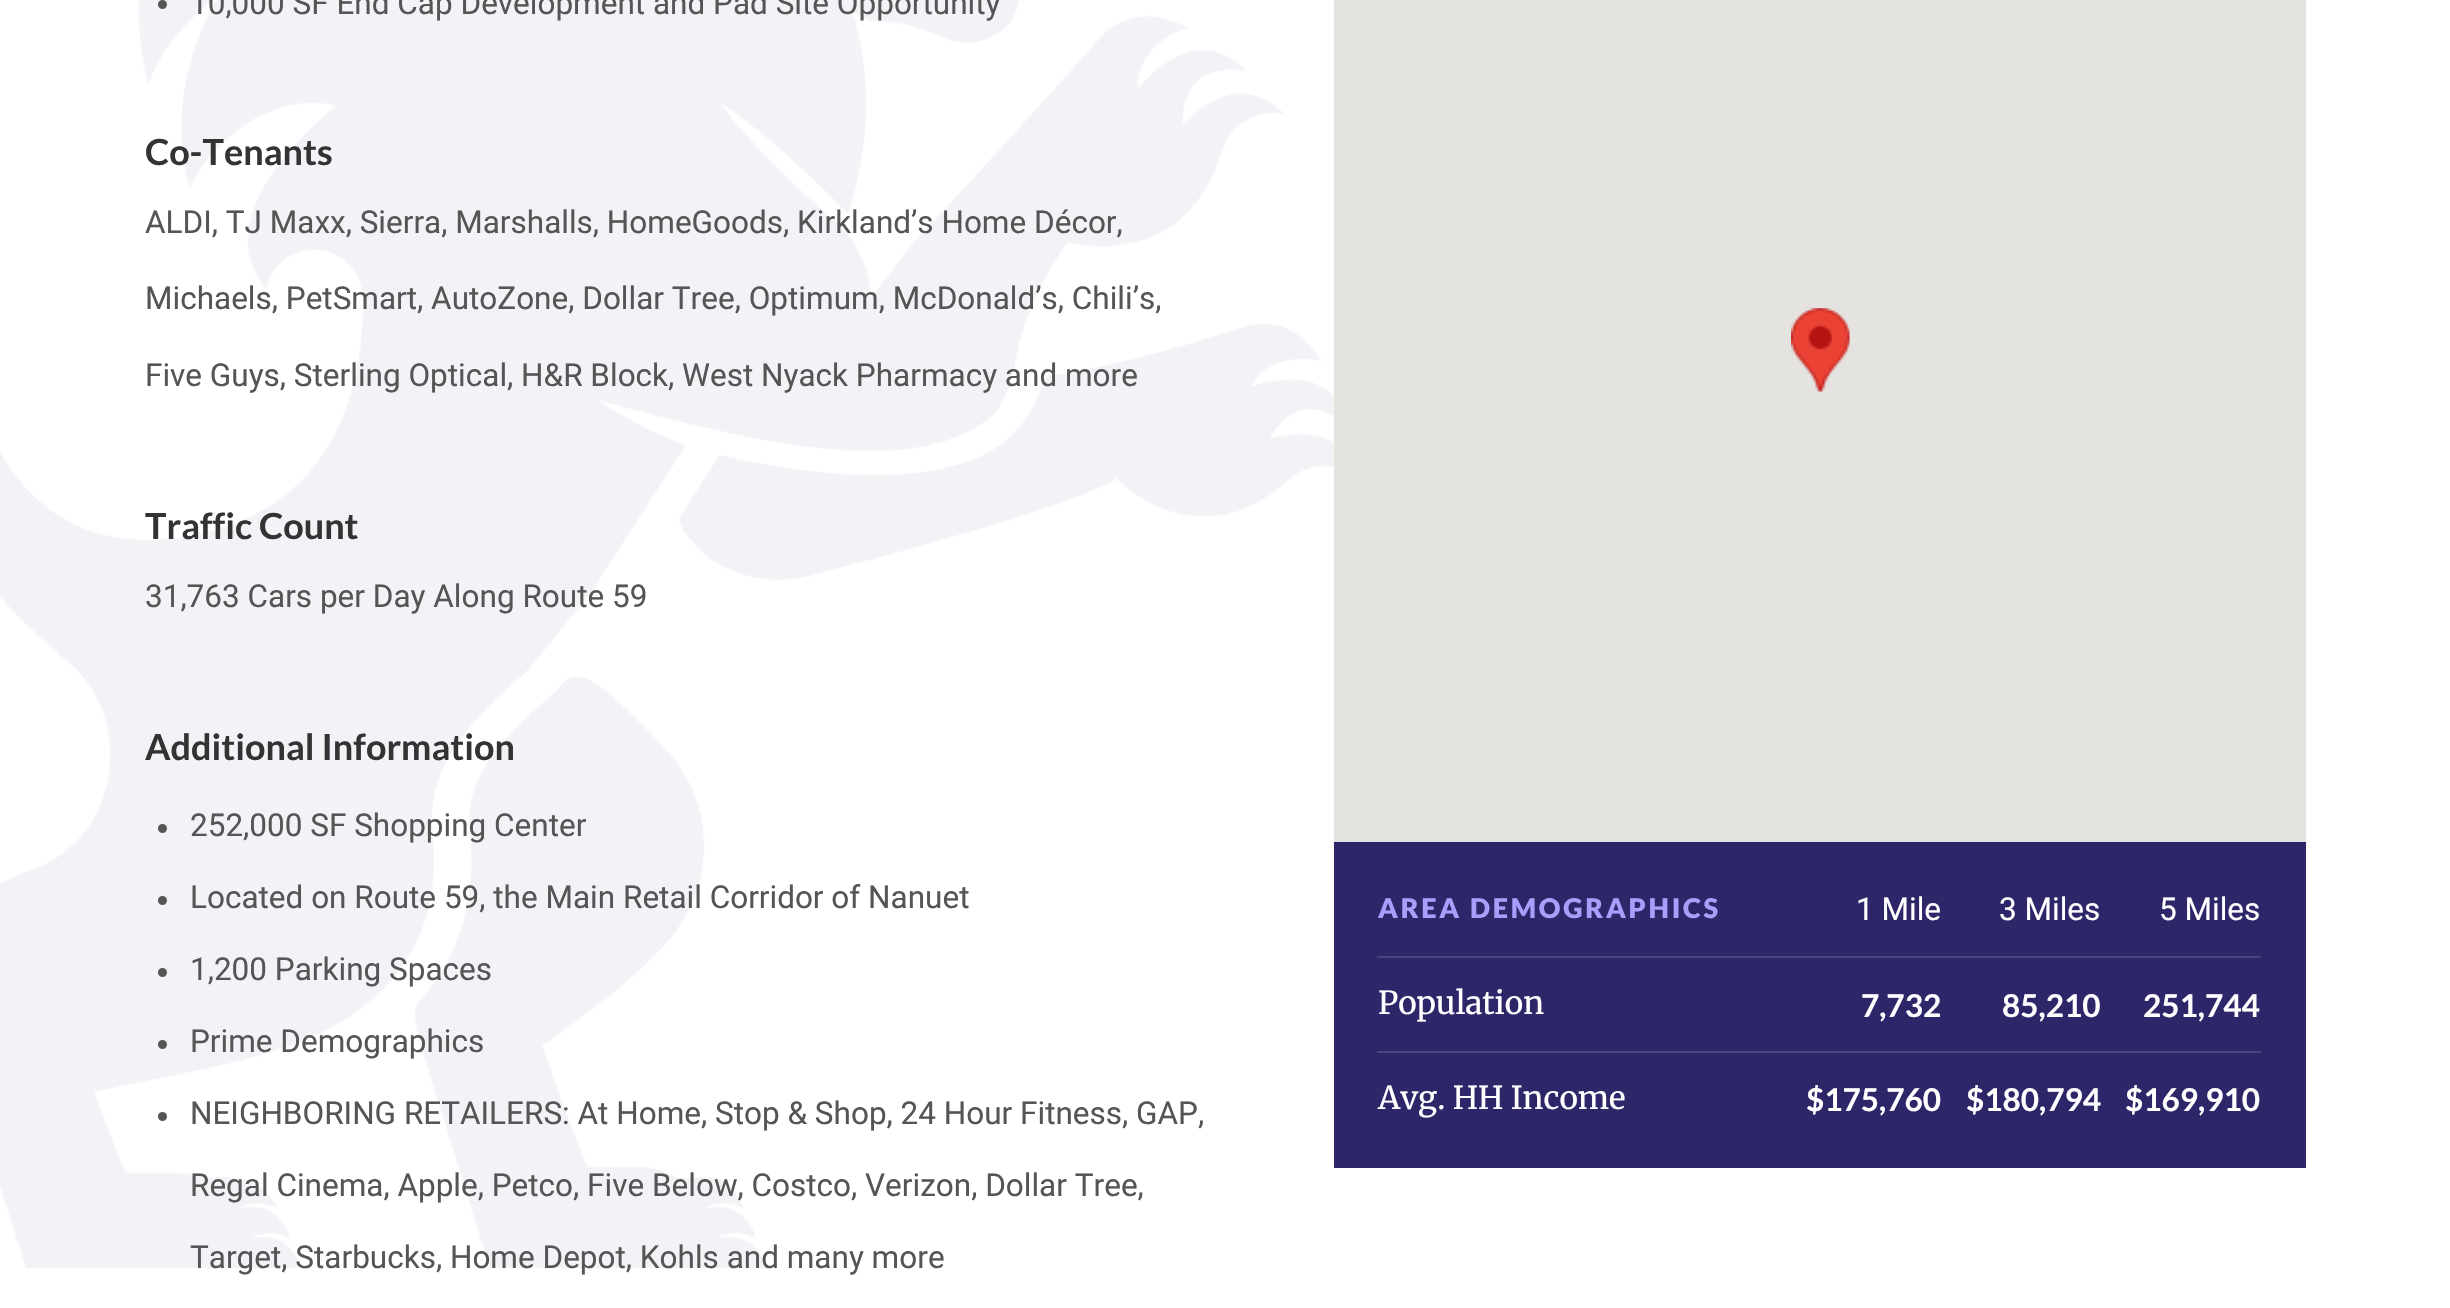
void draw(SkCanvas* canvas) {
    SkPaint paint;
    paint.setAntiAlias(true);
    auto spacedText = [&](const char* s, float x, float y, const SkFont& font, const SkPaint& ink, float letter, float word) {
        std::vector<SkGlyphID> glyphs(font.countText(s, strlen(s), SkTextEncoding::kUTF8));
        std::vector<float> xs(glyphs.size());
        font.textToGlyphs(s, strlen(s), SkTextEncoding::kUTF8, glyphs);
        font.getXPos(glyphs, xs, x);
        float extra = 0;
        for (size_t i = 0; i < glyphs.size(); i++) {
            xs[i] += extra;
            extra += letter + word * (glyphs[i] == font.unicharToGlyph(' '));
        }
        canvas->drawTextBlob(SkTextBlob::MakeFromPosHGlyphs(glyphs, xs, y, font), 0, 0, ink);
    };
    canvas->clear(0xFFFFFFFF);
    canvas->drawImageRect(SkImages::DeferredFromEncodedData(SkData::MakeFromFileName("img1.png")), SkRect::MakeXYWH(0, 0, 1334, 1269), SkSamplingOptions());
    paint.setColor(0xFF555555);
    canvas->drawCircle(162.5f, 4.5f, 4.5f, paint);
    SkFont font1(fontMgr->matchFamilyStyle("Roboto", SkFontStyle::Normal()), 31.5f);
    font1.setSubpixel(true);
    canvas->drawString("10,000 SF End Cap Development and Pad Site Opportunity", 190, 14, font1, paint);
    SkFont font2(fontMgr->matchFamilyStyle("Lato", SkFontStyle::Bold()), 36);
    font2.setSubpixel(true);
    paint.setColor(0xFF333333);
    canvas->drawString("Co-Tenants", 145, 165, font2, paint);
    paint.setColor(0xFF555555);
    canvas->drawString("ALDI, TJ Maxx, Sierra, Marshalls, HomeGoods, Kirkland’s Home Décor,", 145, 233, font1, paint);
    canvas->drawString("Michaels, PetSmart, AutoZone, Dollar Tree, Optimum, McDonald’s, Chili’s,", 145, 309, font1, paint);
    canvas->drawString("Five Guys, Sterling Optical, H&R Block, West Nyack Pharmacy and more", 145, 386, font1, paint);
    paint.setColor(0xFF333333);
    canvas->drawString("Traffic Count", 145, 539, font2, paint);
    paint.setColor(0xFF555555);
    canvas->drawString("31,763 Cars per Day Along Route 59", 145, 607, font1, paint);
    paint.setColor(0xFF333333);
    canvas->drawString("Additional Information", 145, 760, font2, paint);
    paint.setColor(0xFF555555);
    canvas->drawCircle(162.5f, 828.5f, 4.5f, paint);
    canvas->drawString("252,000 SF Shopping Center", 190, 836, font1, paint);
    canvas->drawCircle(162.5f, 900.5f, 4.5f, paint);
    canvas->drawString("Located on Route 59, the Main Retail Corridor of Nanuet", 190, 908, font1, paint);
    canvas->drawCircle(162.5f, 972.5f, 4.5f, paint);
    canvas->drawString("1,200 Parking Spaces", 190, 980, font1, paint);
    canvas->drawCircle(162.5f, 1044.5f, 4.5f, paint);
    canvas->drawString("Prime Demographics", 190, 1052, font1, paint);
    canvas->drawCircle(162.5f, 1116.5f, 4.5f, paint);
    canvas->drawString("NEIGHBORING RETAILERS: At Home, Stop & Shop, 24 Hour Fitness, GAP,", 190, 1124, font1, paint);
    canvas->drawString("Regal Cinema, Apple, Petco, Five Below, Costco, Verizon, Dollar Tree,", 190, 1196, font1, paint);
    canvas->drawString("Target, Starbucks, Home Depot, Kohls and many more", 190, 1268, font1, paint);
    paint.setColor(0xFFE5E3DF);
    canvas->drawRect(SkRect::MakeXYWH(1334, 0, 972, 842), paint);
    canvas->drawImageRect(SkImages::DeferredFromEncodedData(SkData::MakeFromFileName("img2.png")), SkRect::MakeXYWH(1791, 308, 59, 84), SkSamplingOptions());
    paint.setColor(0xFF2D2669);
    canvas->drawRect(SkRect::MakeXYWH(1334, 842, 972, 326), paint);
    paint.setColor(0xFF494483);
    canvas->drawRect(SkRect::MakeXYWH(1377, 956, 884, 2), paint);
    SkFont font3(fontMgr->matchFamilyStyle("Lato", SkFontStyle(900, SkFontStyle::kNormal_Width, SkFontStyle::kUpright_Slant)), 27);
    font3.setSubpixel(true);
    paint.setColor(0xFFA79FFB);
    spacedText("AREA DEMOGRAPHICS", 1378, 918, font3, paint, 2.75f, 0);
    paint.setColor(0xFFFFFFFF);
    canvas->drawString("1 Mile", 1856, 920, font1, paint);
    canvas->drawString("3 Miles", 1999, 920, font1, paint);
    canvas->drawString("5 Miles", 2159, 920, font1, paint);
    paint.setColor(0xFF494483);
    canvas->drawRect(SkRect::MakeXYWH(1377, 1051, 884, 2), paint);
    SkFont font4(fontMgr->matchFamilyStyle("Merriweather", SkFontStyle::Normal()), 31.5f);
    font4.setSubpixel(true);
    paint.setColor(0xFFFFFFFF);
    canvas->drawString("Population", 1378, 1014, font4, paint);
    SkFont font5(fontMgr->matchFamilyStyle("Lato", SkFontStyle::Bold()), 31.5f);
    font5.setSubpixel(true);
    canvas->drawString("7,732", 1861, 1017, font5, paint);
    canvas->drawString("85,210", 2002, 1017, font5, paint);
    canvas->drawString("251,744", 2143, 1017, font5, paint);
    canvas->drawString("Avg. HH Income", 1378, 1109, font4, paint);
    canvas->drawString("$175,760", 1806, 1111, font5, paint);
    canvas->drawString("$180,794", 1966, 1111, font5, paint);
    canvas->drawString("$169,910", 2125, 1111, font5, paint);
}
